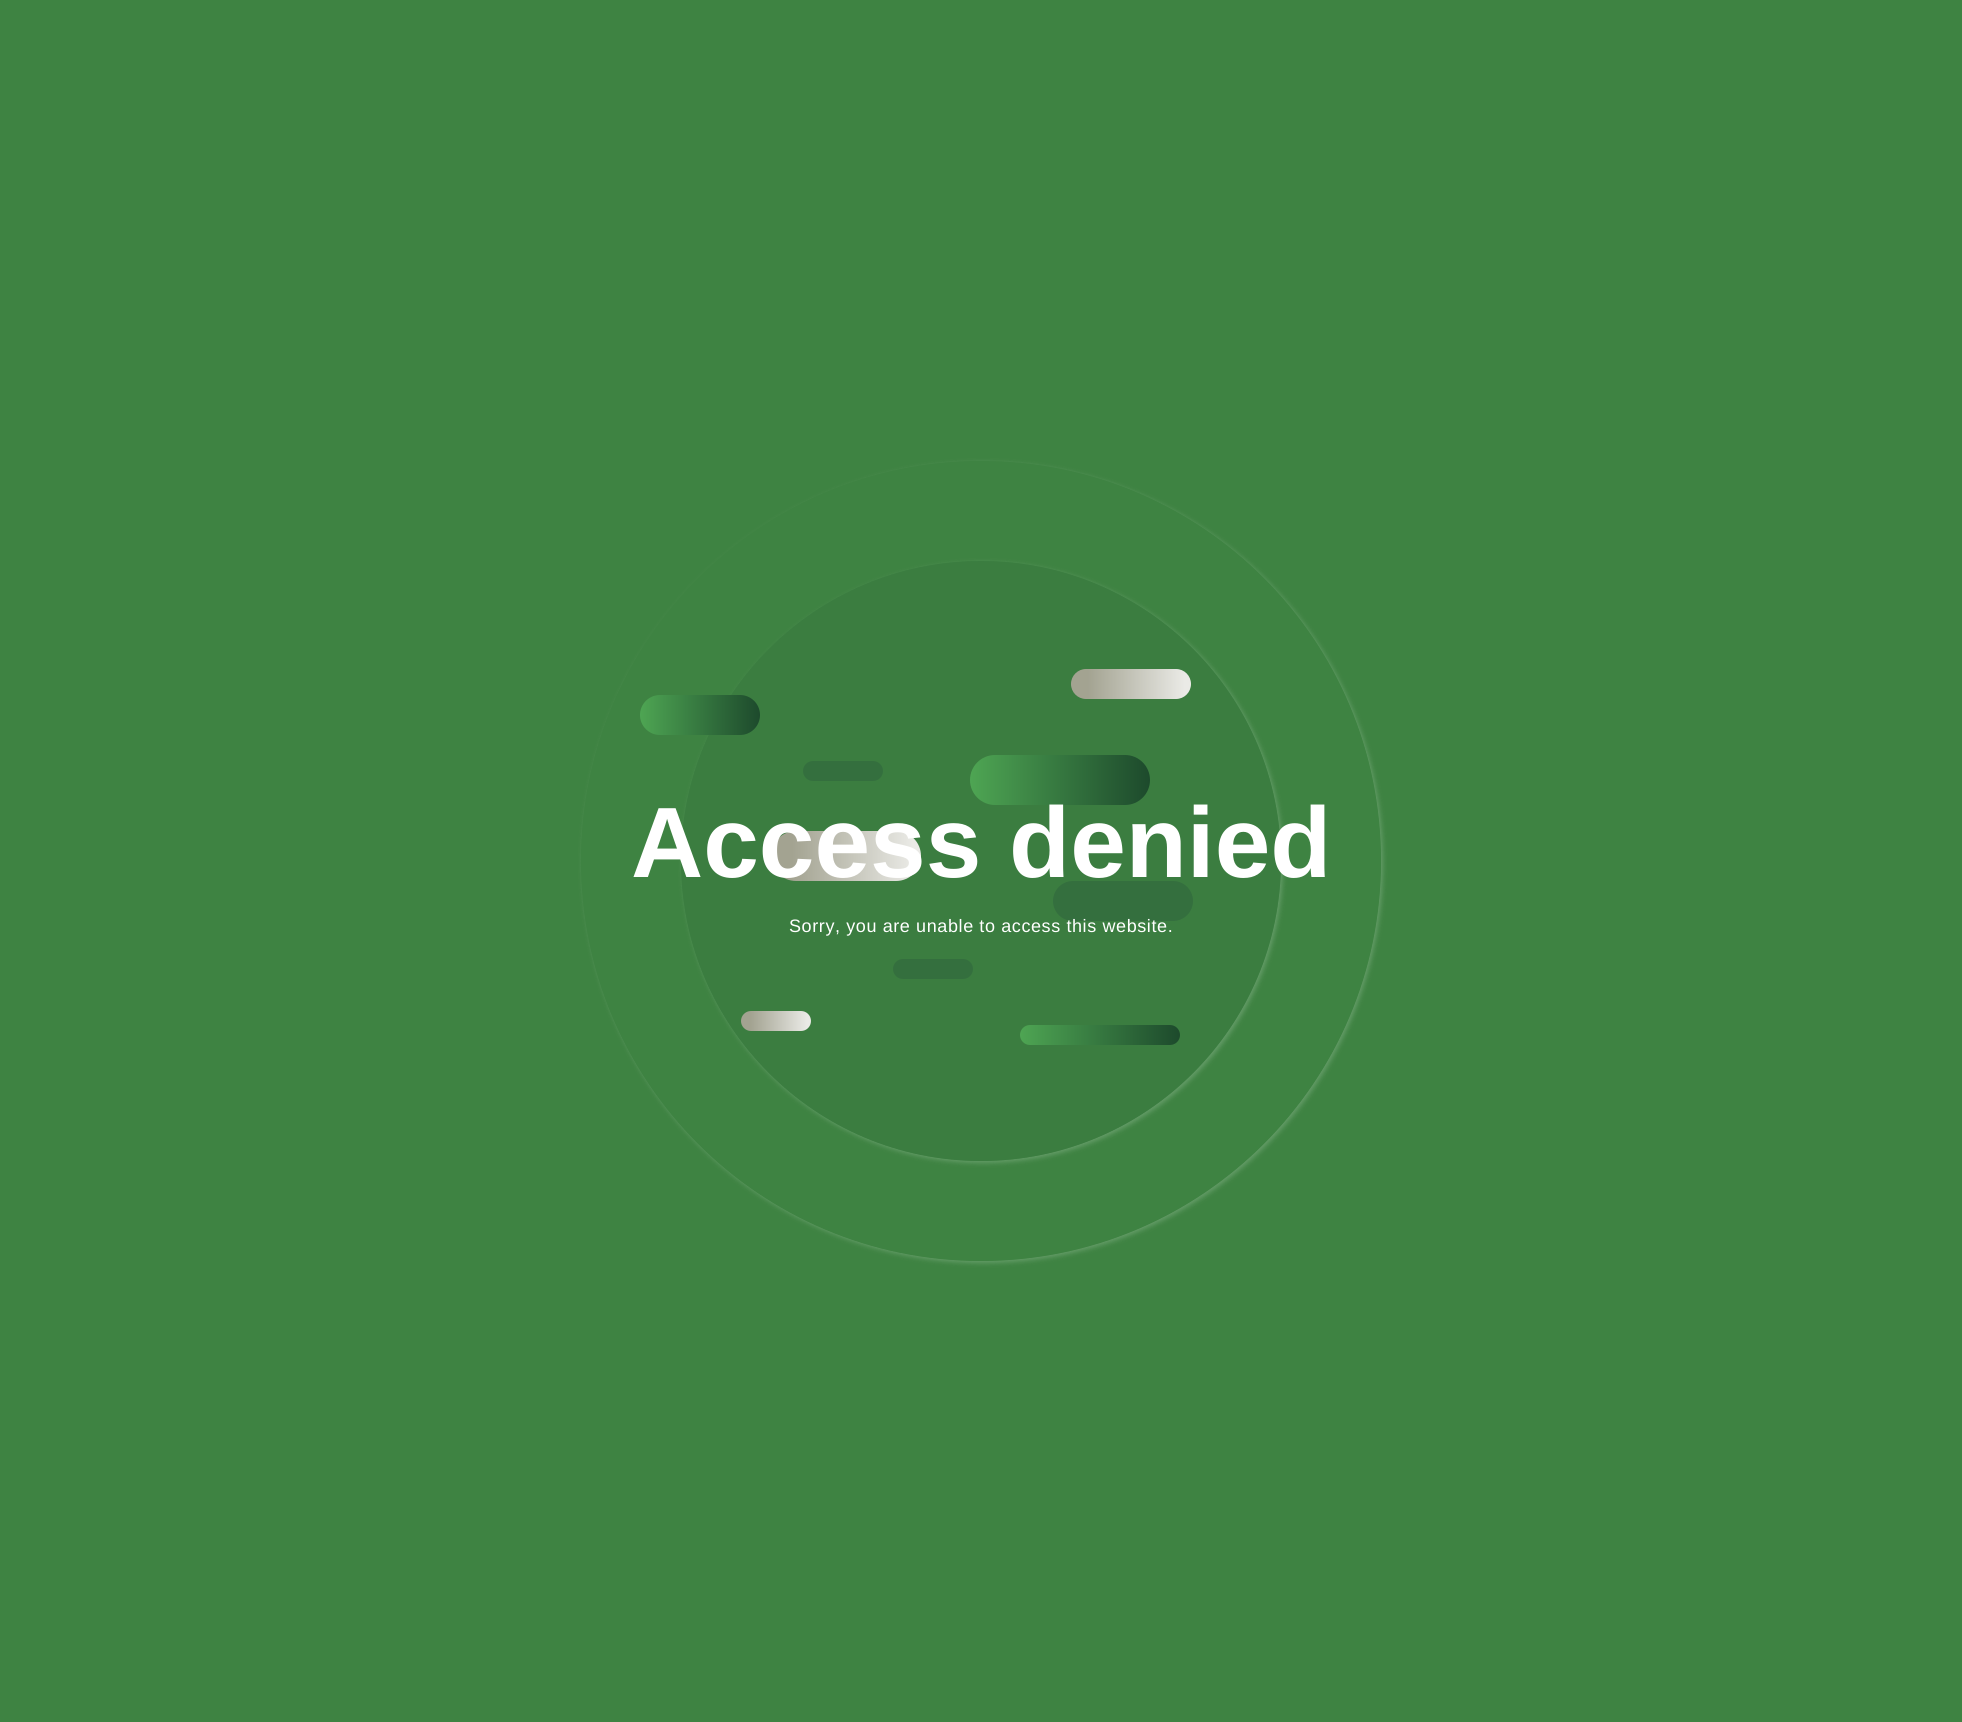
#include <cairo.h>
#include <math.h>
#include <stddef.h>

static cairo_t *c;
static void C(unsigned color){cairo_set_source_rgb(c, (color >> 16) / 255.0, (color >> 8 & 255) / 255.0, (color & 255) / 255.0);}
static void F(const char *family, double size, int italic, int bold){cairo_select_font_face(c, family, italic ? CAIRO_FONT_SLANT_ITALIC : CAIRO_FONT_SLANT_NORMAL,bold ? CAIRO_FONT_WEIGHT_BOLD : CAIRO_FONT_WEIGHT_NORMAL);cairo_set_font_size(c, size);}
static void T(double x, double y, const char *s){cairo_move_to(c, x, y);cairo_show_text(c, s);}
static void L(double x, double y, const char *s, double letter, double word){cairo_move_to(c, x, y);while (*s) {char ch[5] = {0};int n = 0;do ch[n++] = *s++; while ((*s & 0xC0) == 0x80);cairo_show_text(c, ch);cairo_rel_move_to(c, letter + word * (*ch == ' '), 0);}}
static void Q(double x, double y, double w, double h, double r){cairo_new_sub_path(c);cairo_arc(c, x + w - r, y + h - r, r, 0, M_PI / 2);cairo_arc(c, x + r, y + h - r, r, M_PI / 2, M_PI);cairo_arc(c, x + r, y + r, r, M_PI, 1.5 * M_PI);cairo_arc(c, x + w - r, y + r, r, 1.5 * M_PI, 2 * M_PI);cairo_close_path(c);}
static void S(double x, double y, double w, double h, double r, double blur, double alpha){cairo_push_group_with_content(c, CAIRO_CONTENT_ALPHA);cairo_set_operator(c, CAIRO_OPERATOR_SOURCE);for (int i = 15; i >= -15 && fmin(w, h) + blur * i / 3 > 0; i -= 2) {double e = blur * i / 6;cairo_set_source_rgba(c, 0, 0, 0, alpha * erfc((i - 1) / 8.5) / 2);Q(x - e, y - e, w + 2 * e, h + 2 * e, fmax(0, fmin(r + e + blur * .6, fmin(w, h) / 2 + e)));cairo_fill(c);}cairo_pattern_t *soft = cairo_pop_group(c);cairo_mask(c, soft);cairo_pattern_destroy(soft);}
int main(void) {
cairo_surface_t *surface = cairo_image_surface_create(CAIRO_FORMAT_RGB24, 1962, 1722);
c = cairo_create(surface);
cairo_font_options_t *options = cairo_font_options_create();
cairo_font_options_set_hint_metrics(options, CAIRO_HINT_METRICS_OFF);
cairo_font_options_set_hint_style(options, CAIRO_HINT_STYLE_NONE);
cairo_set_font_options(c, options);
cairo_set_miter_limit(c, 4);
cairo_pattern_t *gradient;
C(0x3e8342);
cairo_paint(c);
cairo_save(c);
cairo_set_fill_rule(c,CAIRO_FILL_RULE_EVEN_ODD);
cairo_new_path(c);
cairo_move_to(c,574,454);
cairo_line_to(c,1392,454);
cairo_line_to(c,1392,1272);
cairo_line_to(c,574,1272);
cairo_close_path(c);
cairo_move_to(c,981,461);
cairo_curve_to(c,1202,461,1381,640,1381,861);
cairo_curve_to(c,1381,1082,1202,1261,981,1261);
cairo_curve_to(c,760,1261,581,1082,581,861);
cairo_curve_to(c,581,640,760,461,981,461);
cairo_close_path(c);
cairo_clip(c);
C(0xffffff);
S(583,463,800,800,400,2.5,.2);
cairo_restore(c);
cairo_save(c);
cairo_set_fill_rule(c,CAIRO_FILL_RULE_EVEN_ODD);
cairo_new_path(c);
cairo_move_to(c,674,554);
cairo_line_to(c,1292,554);
cairo_line_to(c,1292,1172);
cairo_line_to(c,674,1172);
cairo_close_path(c);
cairo_move_to(c,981,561);
cairo_curve_to(c,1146.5,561,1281,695.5,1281,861);
cairo_curve_to(c,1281,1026.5,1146.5,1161,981,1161);
cairo_curve_to(c,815.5,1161,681,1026.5,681,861);
cairo_curve_to(c,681,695.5,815.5,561,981,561);
cairo_close_path(c);
cairo_clip(c);
C(0xffffff);
S(683,563,600,600,300,2.5,.2);
cairo_restore(c);
cairo_set_source_rgba(c,0.204,0.435,0.243,0.3);
cairo_arc(c,981,861,300,0,2 * M_PI);
cairo_fill(c);
gradient = cairo_pattern_create_linear(1071,684,1191,684);
cairo_pattern_add_color_stop_rgba(gradient,.14,0.639,0.639,0.569,1);
cairo_pattern_add_color_stop_rgba(gradient,.95,0.918,0.918,0.902,1);
cairo_set_source(c,gradient);
cairo_pattern_destroy(gradient);
Q(1071,669,120,30,15);
cairo_fill(c);
gradient = cairo_pattern_create_linear(771,856,921,856);
cairo_pattern_add_color_stop_rgba(gradient,.14,0.639,0.639,0.569,1);
cairo_pattern_add_color_stop_rgba(gradient,.95,0.918,0.918,0.902,1);
cairo_set_source(c,gradient);
cairo_pattern_destroy(gradient);
Q(771,831,150,50,25);
cairo_fill(c);
gradient = cairo_pattern_create_linear(741,1021,811,1021);
cairo_pattern_add_color_stop_rgba(gradient,.14,0.639,0.639,0.569,1);
cairo_pattern_add_color_stop_rgba(gradient,.95,0.918,0.918,0.902,1);
cairo_set_source(c,gradient);
cairo_pattern_destroy(gradient);
Q(741,1011,70,20,10);
cairo_fill(c);
gradient = cairo_pattern_create_linear(640,715,760,715);
cairo_pattern_add_color_stop_rgba(gradient,0,0.306,0.647,0.325,1);
cairo_pattern_add_color_stop_rgba(gradient,1,0.114,0.29,0.173,1);
cairo_set_source(c,gradient);
cairo_pattern_destroy(gradient);
Q(640,695,120,40,20);
cairo_fill(c);
gradient = cairo_pattern_create_linear(970,780,1150,780);
cairo_pattern_add_color_stop_rgba(gradient,0,0.306,0.647,0.325,1);
cairo_pattern_add_color_stop_rgba(gradient,1,0.114,0.29,0.173,1);
cairo_set_source(c,gradient);
cairo_pattern_destroy(gradient);
Q(970,755,180,50,25);
cairo_fill(c);
gradient = cairo_pattern_create_linear(1020,1035,1180,1035);
cairo_pattern_add_color_stop_rgba(gradient,0,0.306,0.647,0.325,1);
cairo_pattern_add_color_stop_rgba(gradient,1,0.114,0.29,0.173,1);
cairo_set_source(c,gradient);
cairo_pattern_destroy(gradient);
Q(1020,1025,160,20,10);
cairo_fill(c);
C(0x346f3e);
Q(803,761,80,20,10);
cairo_fill(c);
Q(1053,881,140,40,20);
cairo_fill(c);
Q(893,959,80,20,10);
cairo_fill(c);
F("Liberation Sans",100,0,1);
C(0xffffff);
T(631,877,"Access denied");
F("Liberation Sans",18,0,0);
L(789,932,"Sorry, you are unable to access this website.",.6,0);
cairo_surface_write_to_png(surface, "o.png");
cairo_font_options_destroy(options);
cairo_destroy(c);
cairo_surface_destroy(surface);
return 0;
}
